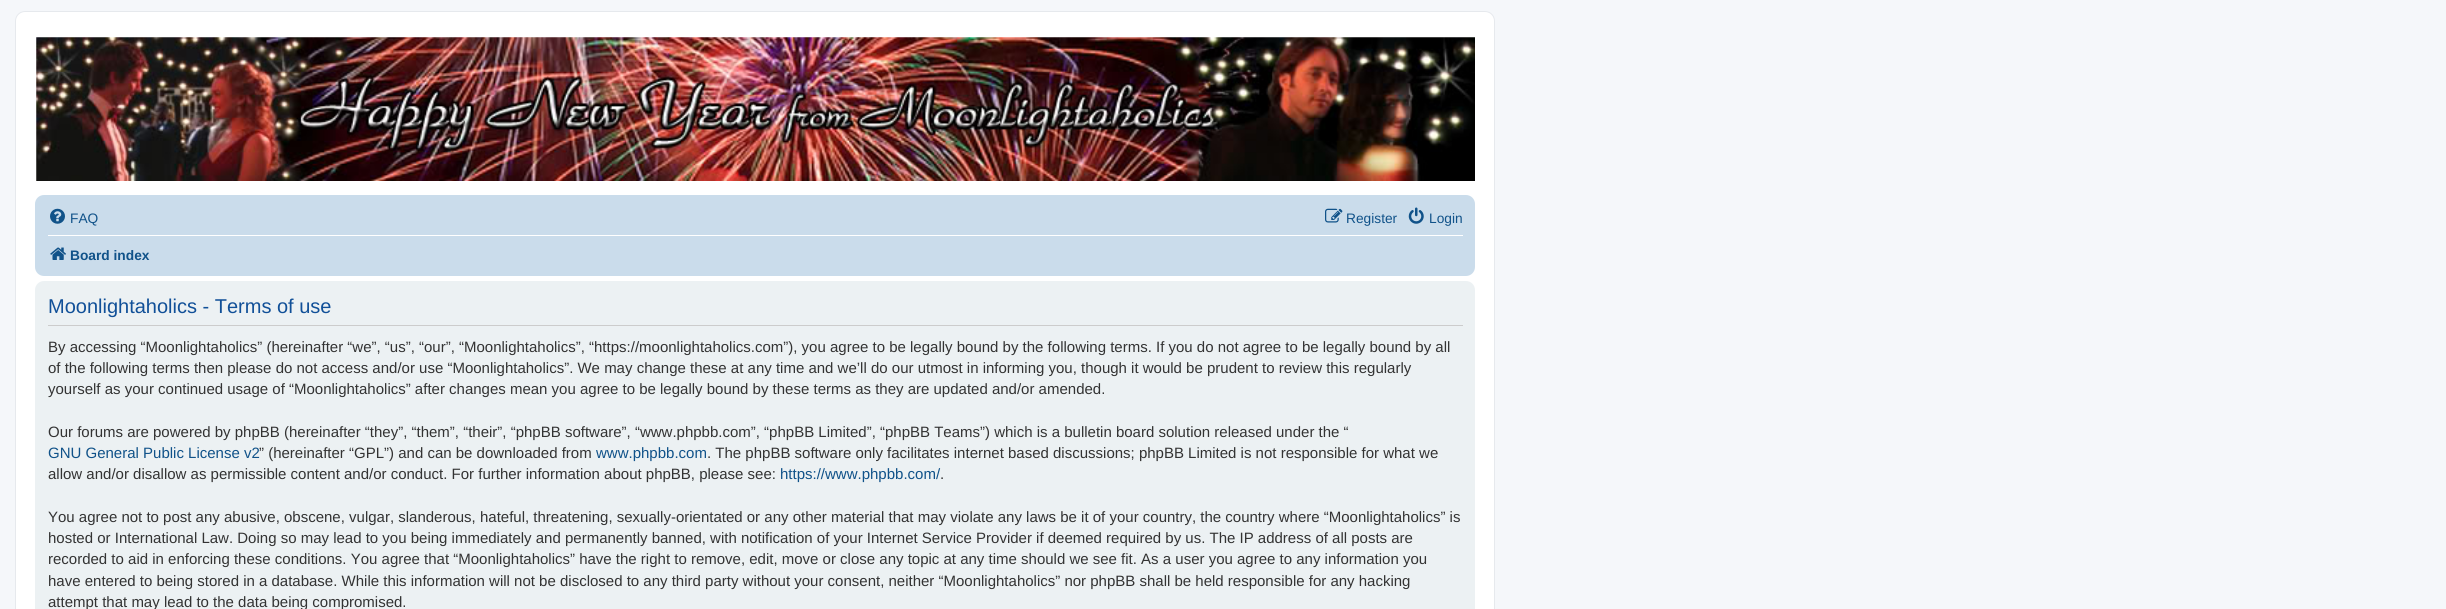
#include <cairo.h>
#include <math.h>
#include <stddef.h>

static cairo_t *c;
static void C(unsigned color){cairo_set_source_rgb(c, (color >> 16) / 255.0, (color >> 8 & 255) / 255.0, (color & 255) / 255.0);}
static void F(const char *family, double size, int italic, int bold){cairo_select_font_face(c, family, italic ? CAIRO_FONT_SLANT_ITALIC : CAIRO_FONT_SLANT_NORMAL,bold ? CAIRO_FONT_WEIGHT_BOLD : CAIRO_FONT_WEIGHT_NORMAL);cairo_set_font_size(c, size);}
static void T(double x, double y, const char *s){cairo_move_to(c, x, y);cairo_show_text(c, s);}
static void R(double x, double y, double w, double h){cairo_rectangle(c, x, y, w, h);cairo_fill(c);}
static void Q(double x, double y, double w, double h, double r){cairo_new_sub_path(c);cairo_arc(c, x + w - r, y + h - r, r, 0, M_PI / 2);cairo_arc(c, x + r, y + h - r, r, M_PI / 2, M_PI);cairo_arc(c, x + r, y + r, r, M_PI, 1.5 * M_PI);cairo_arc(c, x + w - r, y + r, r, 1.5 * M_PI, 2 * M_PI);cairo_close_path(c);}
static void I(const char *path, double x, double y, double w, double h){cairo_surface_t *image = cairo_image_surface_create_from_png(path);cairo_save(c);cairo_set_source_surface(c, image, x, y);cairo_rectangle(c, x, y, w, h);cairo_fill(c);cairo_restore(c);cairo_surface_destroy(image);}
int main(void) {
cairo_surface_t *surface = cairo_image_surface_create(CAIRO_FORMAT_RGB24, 2446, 609);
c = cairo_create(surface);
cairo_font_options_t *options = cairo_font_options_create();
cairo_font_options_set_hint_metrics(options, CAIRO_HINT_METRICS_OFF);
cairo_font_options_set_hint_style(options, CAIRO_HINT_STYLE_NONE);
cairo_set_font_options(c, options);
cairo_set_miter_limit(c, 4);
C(0xf5f7fa);
cairo_paint(c);
C(0xffffff);
Q(15.5,11.5,1479,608,9.5);
cairo_fill_preserve(c);
C(0xe6e9ed);
cairo_set_line_width(c,1);
cairo_stroke(c);
I("1.png",36,37,1439,144);
C(0xcadceb);
Q(35,195,1440,81,9);
cairo_fill(c);
I("2.png",50,208,15,16);
F("Liberation Sans",13.75,0,0);
C(0x105289);
T(70,223,"FAQ");
I("3.png",1325,208,18,15);
T(1346,223,"Register");
I("4.png",1408,207,16,17);
T(1429,223,"Login");
C(0xffffff);
R(48,235,1415,1);
I("5.png",50,247,16,13);
F("Liberation Sans",13.75,0,1);
C(0x105289);
T(70,260,"Board index");
C(0xecf1f3);
Q(35,281,1440,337,9);
cairo_fill(c);
C(0xcccccc);
R(48,325,1415,1);
F("Liberation Sans",20,0,0);
C(0x115098);
T(48,313,"Moonlightaholics - Terms of use");
F("Liberation Sans",15,0,0);
C(0x333333);
T(48,352,"By accessing “Moonlightaholics” (hereinafter “we”, “us”, “our”, “Moonlightaholics”, “https://moonlightaholics.com”), you agree to be legally bound by the following terms. If you do not agree to be legally bound by all");
T(48,373,"of the following terms then please do not access and/or use “Moonlightaholics”. We may change these at any time and we’ll do our utmost in informing you, though it would be prudent to review this regularly");
T(48,394,"yourself as your continued usage of “Moonlightaholics” after changes mean you agree to be legally bound by these terms as they are updated and/or amended.");
T(48,437,"Our forums are powered by phpBB (hereinafter “they”, “them”, “their”, “phpBB software”, “www.phpbb.com”, “phpBB Limited”, “phpBB Teams”) which is a bulletin board solution released under the “");
C(0x105289);
T(48,458,"GNU General Public License v2");
C(0x333333);
T(259,458,"” (hereinafter “GPL”) and can be downloaded from");
C(0x105289);
T(596,458,"www.phpbb.com");
C(0x333333);
T(707,458,". The phpBB software only facilitates internet based discussions; phpBB Limited is not responsible for what we");
T(48,479,"allow and/or disallow as permissible content and/or conduct. For further information about phpBB, please see:");
C(0x105289);
T(780,479,"https://www.phpbb.com/");
C(0x333333);
T(940,479,".");
T(48,522,"You agree not to post any abusive, obscene, vulgar, slanderous, hateful, threatening, sexually-orientated or any other material that may violate any laws be it of your country, the country where “Moonlightaholics” is");
T(48,543,"hosted or International Law. Doing so may lead to you being immediately and permanently banned, with notification of your Internet Service Provider if deemed required by us. The IP address of all posts are");
T(48,564,"recorded to aid in enforcing these conditions. You agree that “Moonlightaholics” have the right to remove, edit, move or close any topic at any time should we see fit. As a user you agree to any information you");
T(48,586,"have entered to being stored in a database. While this information will not be disclosed to any third party without your consent, neither “Moonlightaholics” nor phpBB shall be held responsible for any hacking");
T(48,607,"attempt that may lead to the data being compromised.");
cairo_surface_write_to_png(surface, "o.png");
cairo_font_options_destroy(options);
cairo_destroy(c);
cairo_surface_destroy(surface);
return 0;
}
